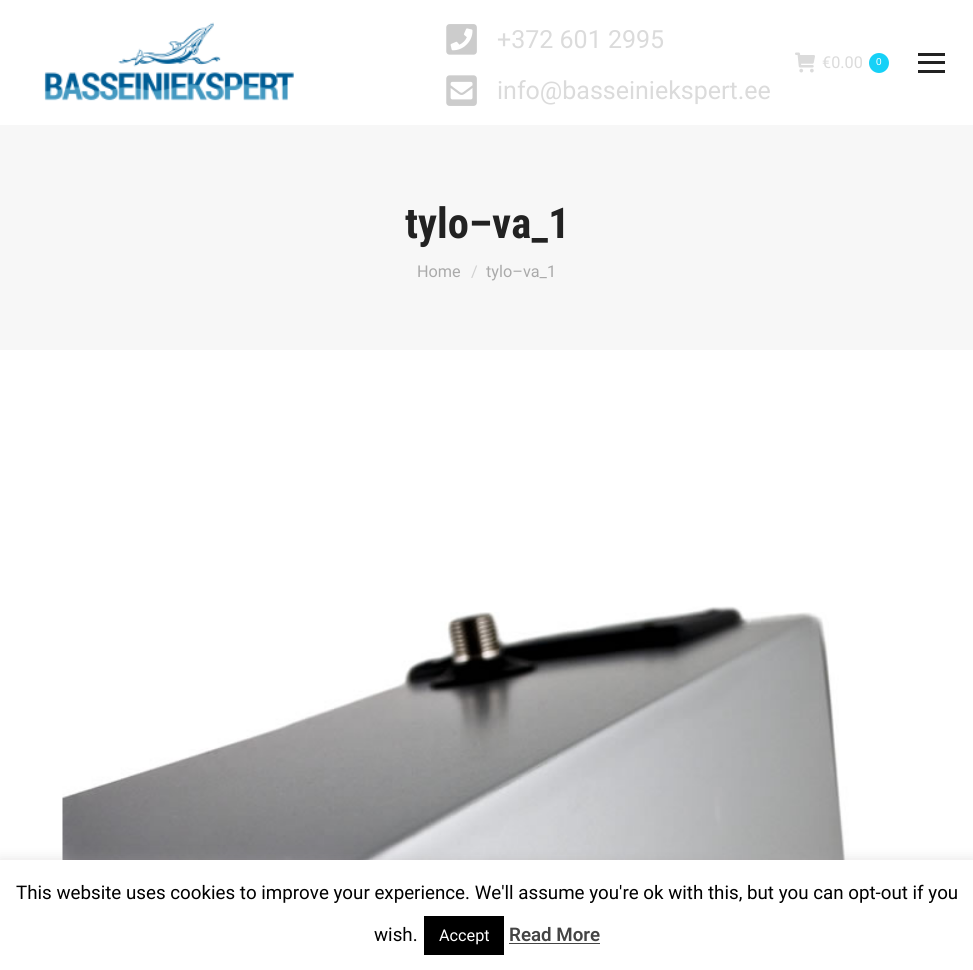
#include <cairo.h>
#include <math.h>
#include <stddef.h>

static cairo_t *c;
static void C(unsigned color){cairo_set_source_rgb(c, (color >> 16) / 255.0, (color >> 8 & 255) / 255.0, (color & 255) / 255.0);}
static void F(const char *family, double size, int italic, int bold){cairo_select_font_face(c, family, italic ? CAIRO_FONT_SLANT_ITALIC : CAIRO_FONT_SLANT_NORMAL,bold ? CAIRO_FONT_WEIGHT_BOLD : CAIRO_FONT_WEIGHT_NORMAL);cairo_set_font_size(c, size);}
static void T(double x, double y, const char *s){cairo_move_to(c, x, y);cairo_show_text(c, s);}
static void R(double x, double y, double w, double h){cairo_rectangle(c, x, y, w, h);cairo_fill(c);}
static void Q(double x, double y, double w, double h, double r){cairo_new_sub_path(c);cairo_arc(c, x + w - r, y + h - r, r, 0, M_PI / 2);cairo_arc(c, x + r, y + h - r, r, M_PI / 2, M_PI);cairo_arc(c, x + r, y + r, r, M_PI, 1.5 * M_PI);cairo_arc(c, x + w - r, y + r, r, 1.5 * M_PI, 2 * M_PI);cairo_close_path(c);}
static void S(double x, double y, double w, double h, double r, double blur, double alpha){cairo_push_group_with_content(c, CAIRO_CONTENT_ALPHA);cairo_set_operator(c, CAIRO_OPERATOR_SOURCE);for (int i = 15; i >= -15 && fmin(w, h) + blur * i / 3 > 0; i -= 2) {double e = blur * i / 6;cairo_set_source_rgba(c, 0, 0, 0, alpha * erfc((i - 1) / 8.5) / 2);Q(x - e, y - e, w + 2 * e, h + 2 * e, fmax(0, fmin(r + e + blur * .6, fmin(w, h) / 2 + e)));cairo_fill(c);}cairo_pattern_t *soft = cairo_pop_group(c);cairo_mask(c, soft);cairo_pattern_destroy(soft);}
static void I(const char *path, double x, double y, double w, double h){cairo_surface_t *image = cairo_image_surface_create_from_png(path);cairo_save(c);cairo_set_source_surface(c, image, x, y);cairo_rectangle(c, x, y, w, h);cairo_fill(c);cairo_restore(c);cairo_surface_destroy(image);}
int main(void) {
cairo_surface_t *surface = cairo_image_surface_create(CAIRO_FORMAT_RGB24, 973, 970);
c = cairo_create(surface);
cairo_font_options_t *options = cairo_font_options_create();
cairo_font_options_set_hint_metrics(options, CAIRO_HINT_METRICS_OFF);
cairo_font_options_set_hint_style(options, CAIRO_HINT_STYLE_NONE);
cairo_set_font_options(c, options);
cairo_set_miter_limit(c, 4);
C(0xffffff);
cairo_paint(c);
I("1.png",44,22,250,79);
I("2.png",446,24,31,31);
F("Roboto",25,0,0);
C(0xdbdbdb);
T(497,48,"+372 601 2995");
I("3.png",446,75,31,31);
T(497,99,"info@basseiniekspert.ee");
I("4.png",795,52,20,21);
F("Roboto",16.25,0,0);
T(822,68,"€0.00");
C(0x16d1f7);
cairo_new_path(c);
cairo_arc(c,879,63,10,0,2 * M_PI);
cairo_fill(c);
F("Liberation Sans",10,0,0);
C(0xffffff);
T(876,65,"0");
C(0x222222);
R(918,53,27,3);
R(918,61,27,3);
R(918,70,27,3);
C(0xf7f7f7);
R(0,125,973,225);
F("Roboto Condensed",42.5,0,1);
C(0x222222);
T(405,238,"tylo–va_1");
F("Roboto",16.25,0,0);
C(0xaaaaaa);
T(417,277,"Home");
C(0xd1d1d1);
T(471,277,"/");
C(0xaaaaaa);
T(486,277,"tylo–va_1");
I("5.png",62,606,793,254);
C(0xacabab);
S(0,859,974,110,0,6,.3);
C(0xffffff);
R(0,860,973,110);
F("Roboto",18.75,0,0);
C(0x000000);
T(16,899,"This website uses cookies to improve your experience. We'll assume you're ok with this, but you can opt-out if you");
T(374,941,"wish.");
R(424,916,80,39);
F("Roboto",16.25,0,0);
C(0xffffff);
T(439,941,"Accept");
F("Roboto SemiBold",18.75,0,0);
C(0x444444);
T(509,941,"Read More");
R(509,943,91,1);
cairo_surface_write_to_png(surface, "o.png");
cairo_font_options_destroy(options);
cairo_destroy(c);
cairo_surface_destroy(surface);
return 0;
}
